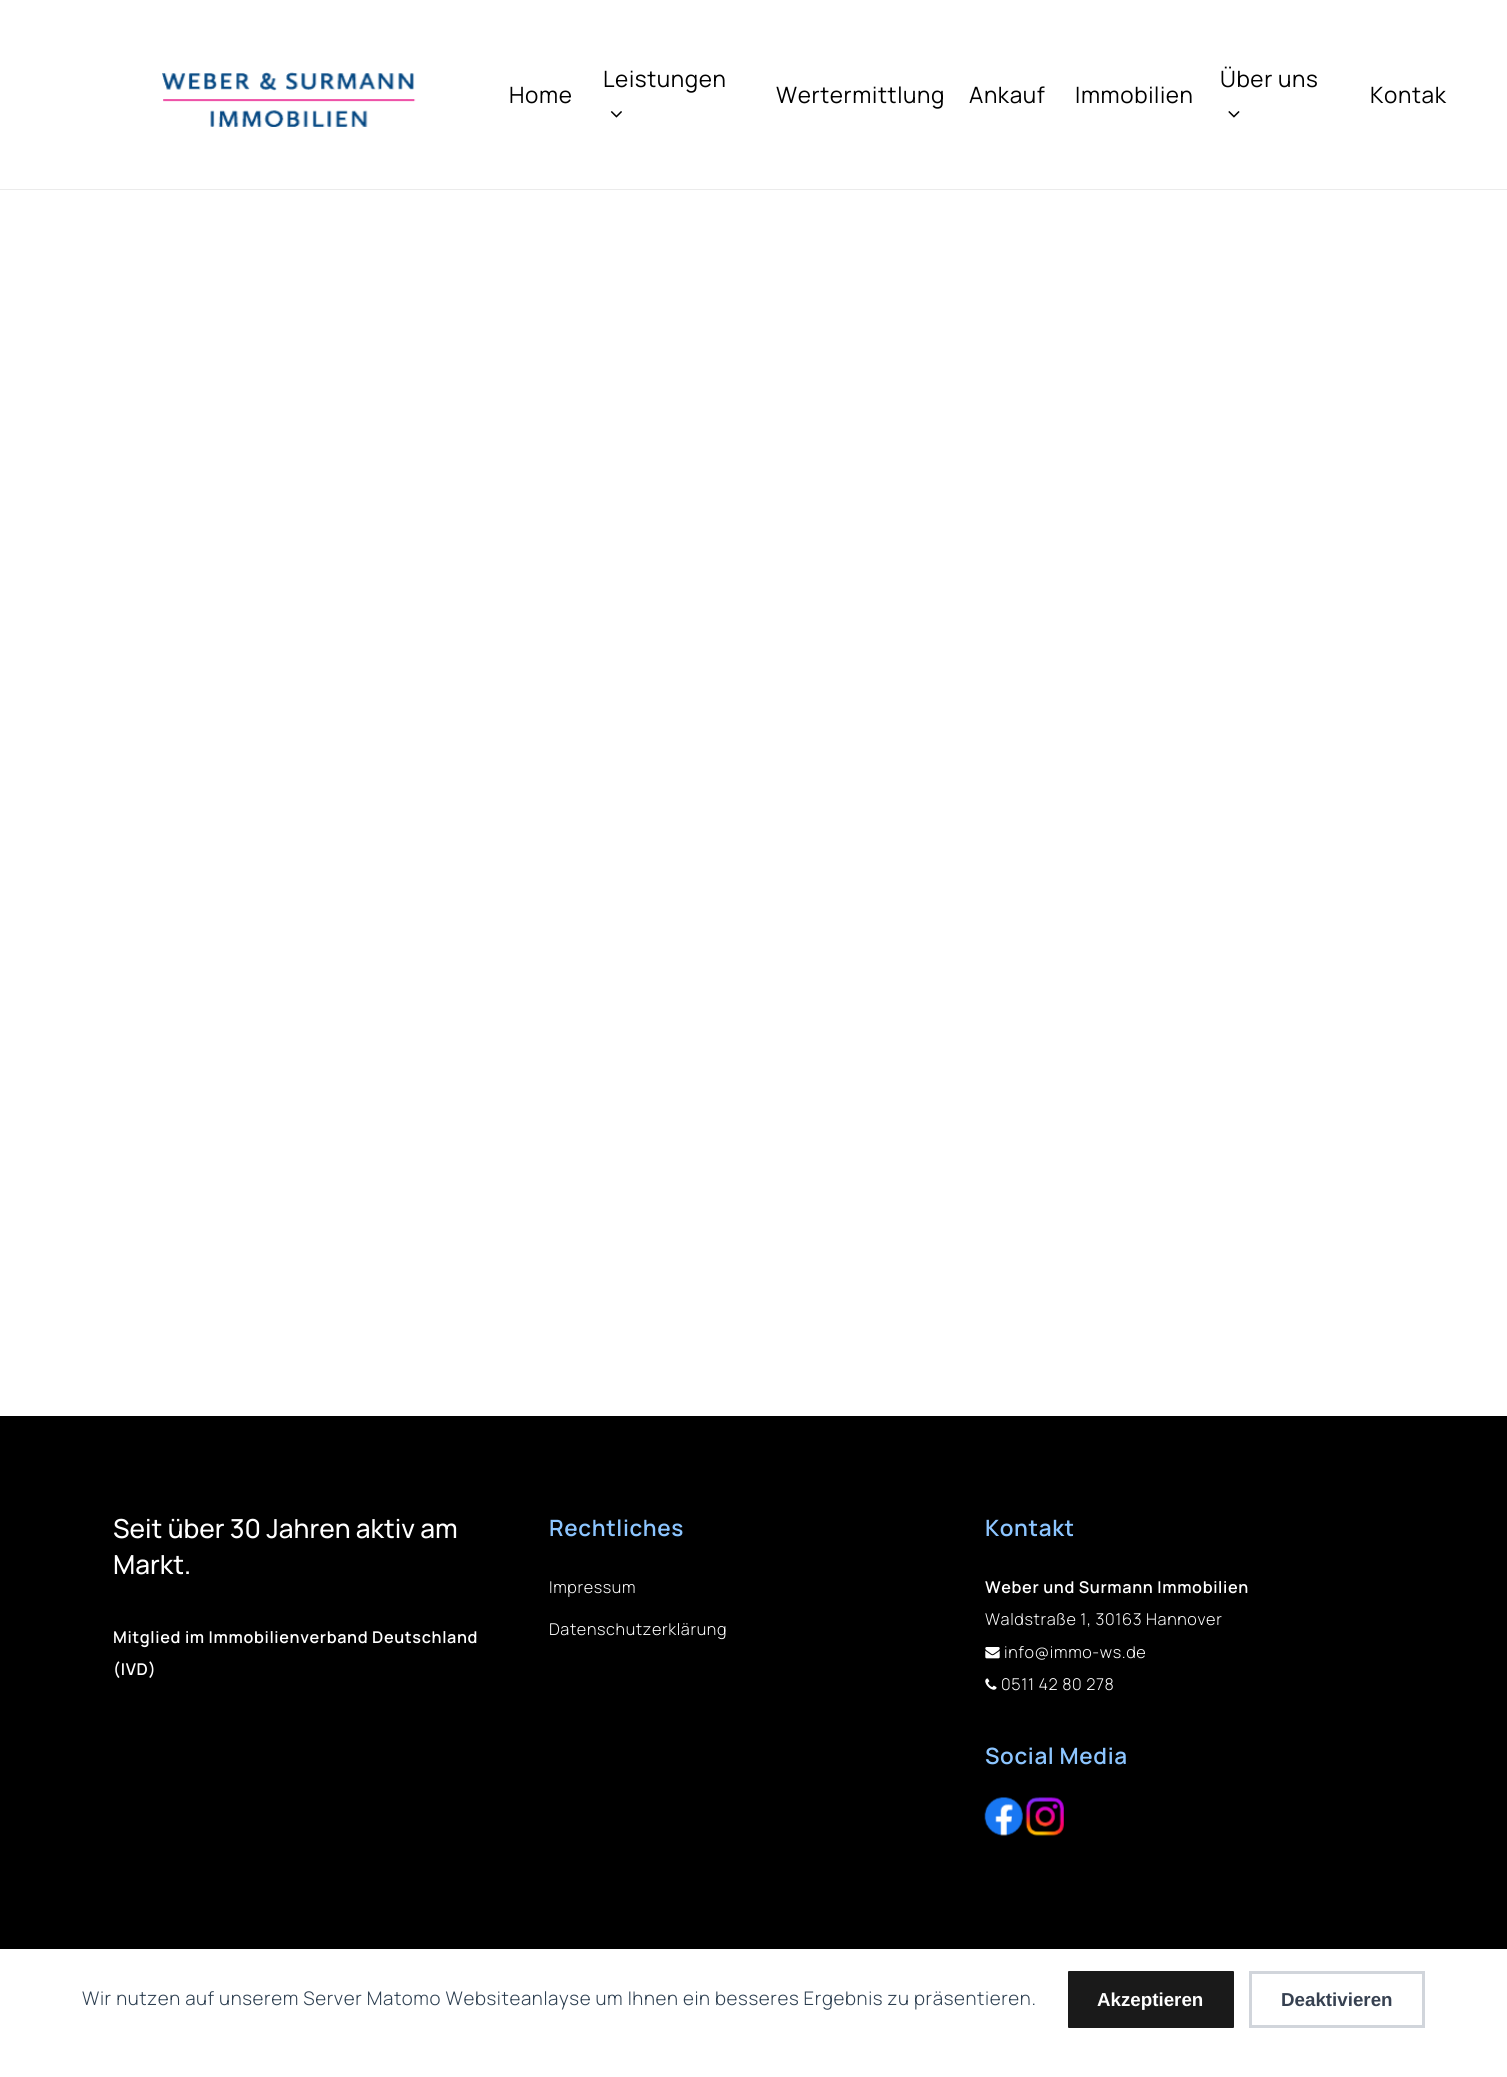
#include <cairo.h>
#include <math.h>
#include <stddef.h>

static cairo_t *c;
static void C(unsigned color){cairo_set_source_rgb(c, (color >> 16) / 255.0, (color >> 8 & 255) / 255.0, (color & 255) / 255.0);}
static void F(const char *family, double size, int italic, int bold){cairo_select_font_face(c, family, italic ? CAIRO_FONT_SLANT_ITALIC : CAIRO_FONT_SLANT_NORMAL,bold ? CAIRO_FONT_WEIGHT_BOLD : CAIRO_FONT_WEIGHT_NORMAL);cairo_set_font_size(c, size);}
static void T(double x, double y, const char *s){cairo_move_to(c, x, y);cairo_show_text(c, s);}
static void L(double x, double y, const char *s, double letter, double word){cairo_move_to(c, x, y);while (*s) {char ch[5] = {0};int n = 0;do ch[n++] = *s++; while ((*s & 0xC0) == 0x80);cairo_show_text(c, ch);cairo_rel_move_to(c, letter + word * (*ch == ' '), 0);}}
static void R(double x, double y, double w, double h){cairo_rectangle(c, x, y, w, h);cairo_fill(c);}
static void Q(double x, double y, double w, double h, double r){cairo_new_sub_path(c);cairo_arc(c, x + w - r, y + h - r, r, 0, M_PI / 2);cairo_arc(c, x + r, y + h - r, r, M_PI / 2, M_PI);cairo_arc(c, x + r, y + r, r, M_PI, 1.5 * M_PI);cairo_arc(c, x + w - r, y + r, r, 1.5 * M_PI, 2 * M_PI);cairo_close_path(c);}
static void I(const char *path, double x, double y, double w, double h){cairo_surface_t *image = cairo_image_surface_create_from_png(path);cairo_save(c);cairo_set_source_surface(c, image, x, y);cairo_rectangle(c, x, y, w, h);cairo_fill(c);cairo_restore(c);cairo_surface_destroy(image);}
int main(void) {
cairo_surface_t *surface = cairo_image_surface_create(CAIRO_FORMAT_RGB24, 1507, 2077);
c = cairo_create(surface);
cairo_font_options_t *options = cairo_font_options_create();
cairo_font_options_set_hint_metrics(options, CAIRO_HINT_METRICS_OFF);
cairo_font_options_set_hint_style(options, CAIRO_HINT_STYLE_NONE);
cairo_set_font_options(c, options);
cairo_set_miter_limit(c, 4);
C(0xffffff);
cairo_paint(c);
C(0xebebeb);
cairo_new_path(c);
cairo_move_to(c,0,189);
cairo_line_to(c,0,190);
cairo_line_to(c,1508,190);
cairo_line_to(c,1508,1);
cairo_line_to(c,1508,189);
cairo_close_path(c);
cairo_fill(c);
I("1.png",162,72,254,55);
F("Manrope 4 ExtraLight",22.5,0,0);
C(0x000000);
L(603,87,"Leistungen",.62,0);
I("2.png",610,111,12,7);
L(1220,87,"Über uns",.62,0);
I("3.png",1228,111,12,7);
L(509,103,"Home",.62,0);
L(776,103,"Wertermittlung",.62,0);
L(969,103,"Ankauf",.62,0);
L(1075,103,"Immobilien",.62,0);
L(1370,103,"Kontak",.62,0);
R(0,1416,1507,533);
F("Manrope ExtraLight",26.25,0,0);
C(0xffffff);
T(113,1538,"Seit über 30 Jahren aktiv am");
T(113,1574,"Markt.");
F("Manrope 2 ExtraLight",16.25,0,0);
L(113,1643,"Mitglied im Immobilienverband Deutschland",.62,0);
L(113,1675,"(IVD)",.62,0);
F("Manrope 2 ExtraLight",22.5,0,0);
C(0x8cc5ff);
L(549,1536,"Rechtliches",.62,0);
F("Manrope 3 ExtraLight",16.25,0,0);
C(0xffffff);
L(549,1593,"Impressum",.62,0);
L(549,1635,"Datenschutzerklärung",.62,0);
F("Manrope 2 ExtraLight",22.5,0,0);
C(0x8cc5ff);
L(985,1536,"Kontakt",.62,0);
F("Manrope 2 ExtraLight",16.25,0,0);
C(0xffffff);
L(985,1593,"Weber und Surmann Immobilien",.62,0);
F("Manrope 3 ExtraLight",16.25,0,0);
L(985,1625,"Waldstraße 1, 30163 Hannover",.62,0);
I("4.png",985,1647,15,12);
L(1004,1658,"info@immo-ws.de",.62,0);
I("5.png",985,1678,12,12);
L(1001,1690,"0511 42 80 278",.62,0);
F("Manrope 2 ExtraLight",22.5,0,0);
C(0x8cc5ff);
L(985,1764,"Social Media",.62,0);
I("6.png",984,1797,39,39);
I("7.png",1025,1797,39,39);
F("Manrope 3 ExtraLight",18.75,0,0);
C(0x2c3e50);
L(82,2005,"Wir nutzen auf unserem Server Matomo Websiteanlayse um Ihnen ein besseres Ergebnis zu präsentieren.",.62,0);
C(0x1a1a1a);
Q(1068,1971,166,57,1);
cairo_fill(c);
F("Liberation Sans",18.75,0,1);
C(0xffffff);
T(1097,2006,"Akzeptieren");
cairo_rectangle(c,1250.5,1972.5,173,54);
C(0xd1d5db);
cairo_set_line_width(c,3);
cairo_stroke(c);
C(0x374151);
T(1281,2006,"Deaktivieren");
cairo_surface_write_to_png(surface, "o.png");
cairo_font_options_destroy(options);
cairo_destroy(c);
cairo_surface_destroy(surface);
return 0;
}
